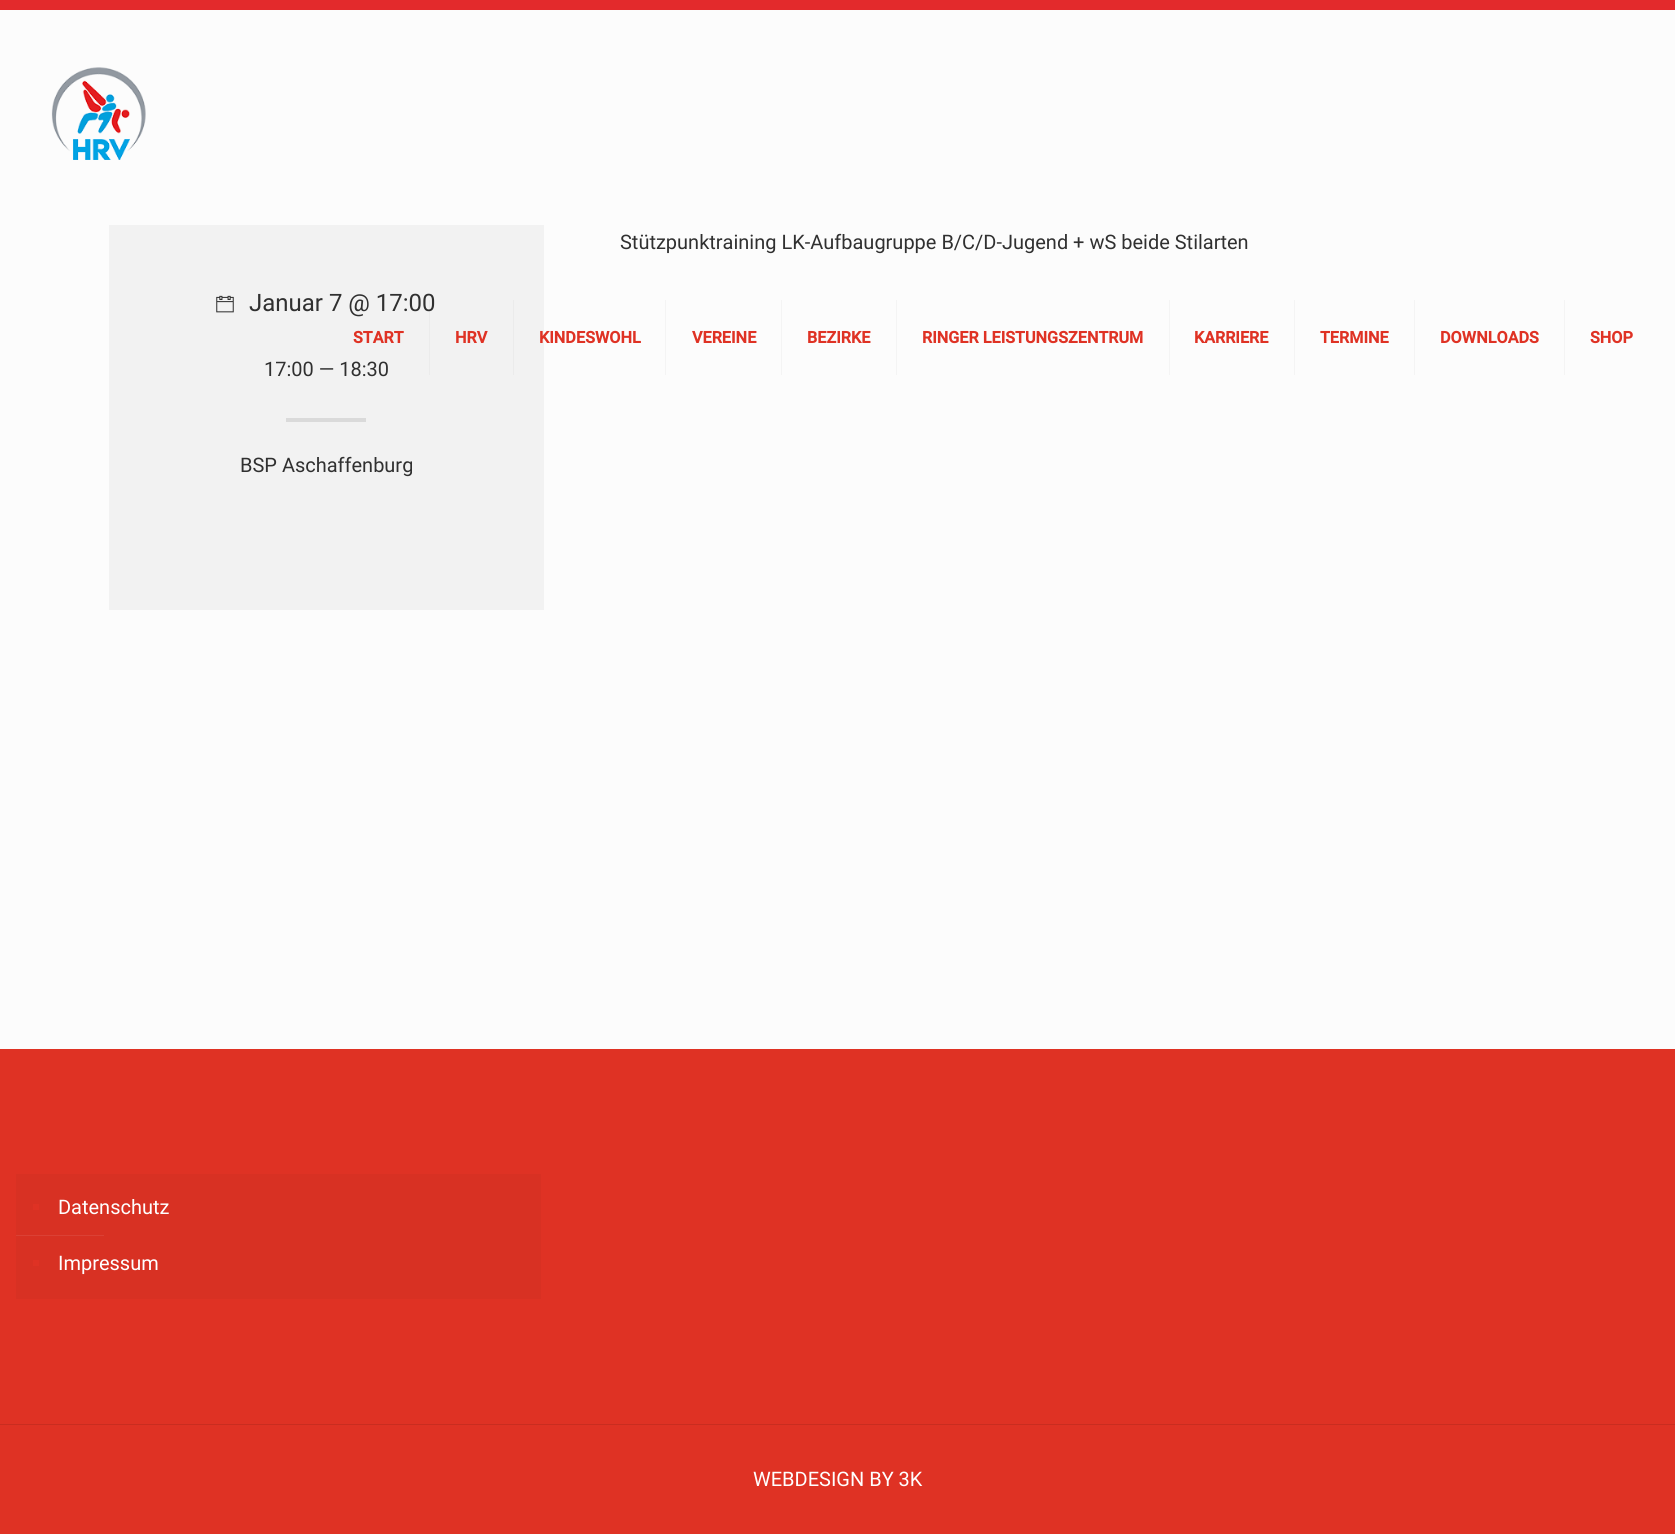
#include <cairo.h>
#include <math.h>
#include <stddef.h>

static cairo_t *c;
static void C(unsigned color){cairo_set_source_rgb(c, (color >> 16) / 255.0, (color >> 8 & 255) / 255.0, (color & 255) / 255.0);}
static void F(const char *family, double size, int italic, int bold){cairo_select_font_face(c, family, italic ? CAIRO_FONT_SLANT_ITALIC : CAIRO_FONT_SLANT_NORMAL,bold ? CAIRO_FONT_WEIGHT_BOLD : CAIRO_FONT_WEIGHT_NORMAL);cairo_set_font_size(c, size);}
static void T(double x, double y, const char *s){cairo_move_to(c, x, y);cairo_show_text(c, s);}
static void R(double x, double y, double w, double h){cairo_rectangle(c, x, y, w, h);cairo_fill(c);}
static void I(const char *path, double x, double y, double w, double h){cairo_surface_t *image = cairo_image_surface_create_from_png(path);cairo_save(c);cairo_set_source_surface(c, image, x, y);cairo_rectangle(c, x, y, w, h);cairo_fill(c);cairo_restore(c);cairo_surface_destroy(image);}
int main(void) {
cairo_surface_t *surface = cairo_image_surface_create(CAIRO_FORMAT_RGB24, 1675, 1534);
c = cairo_create(surface);
cairo_font_options_t *options = cairo_font_options_create();
cairo_font_options_set_hint_metrics(options, CAIRO_HINT_METRICS_OFF);
cairo_font_options_set_hint_style(options, CAIRO_HINT_STYLE_NONE);
cairo_set_font_options(c, options);
cairo_set_miter_limit(c, 4);
C(0xfcfcfc);
cairo_paint(c);
F("Roboto",20,0,0);
C(0x303030);
T(620,249,"Stützpunktraining LK-Aufbaugruppe B/C/D-Jugend + wS beide Stilarten");
I("1.png",216,295,18,18);
cairo_set_source_rgba(c,0.188,0.188,0.188,0.05);
R(109,225,435,385);
F("Roboto",24,0,0);
C(0x303030);
T(249,311,"Januar 7 @ 17:00");
F("Roboto",20,0,0);
T(264,376,"17:00 — 18:30");
C(0xdadada);
R(286,418,80,4);
C(0x303030);
T(240,472,"BSP Aschaffenburg");
C(0xe32a2c);
R(0,0,1675,10);
I("2.png",51,67,95,93);
cairo_set_source_rgba(c,0,0,0,0.03);
R(429,300,1,75);
F("Roboto",16.25,0,1);
C(0xdf3224);
T(353,343,"START");
C(0xebebeb);
R(513,300,1,75);
C(0xdf3224);
T(455,343,"HRV");
C(0xf4f4f4);
R(665,300,1,75);
C(0xdf3224);
T(539,343,"KINDESWOHL");
C(0xf4f4f4);
R(781,300,1,75);
C(0xdf3224);
T(692,343,"VEREINE");
C(0xf4f4f4);
R(896,300,1,75);
C(0xdf3224);
T(807,343,"BEZIRKE");
C(0xf4f4f4);
R(1169,300,1,75);
C(0xdf3224);
T(922,343,"RINGER LEISTUNGSZENTRUM");
C(0xf4f4f4);
R(1294,300,1,75);
C(0xdf3224);
T(1194,343,"KARRIERE");
C(0xf4f4f4);
R(1414,300,1,75);
C(0xdf3224);
T(1320,343,"TERMINE");
C(0xf4f4f4);
R(1564,300,1,75);
C(0xdf3224);
T(1440,343,"DOWNLOADS");
T(1590,343,"SHOP");
R(0,1049,1675,485);
C(0xd83123);
R(16,1174,525,125);
C(0xdf3224);
R(33,1204,6,6);
F("Roboto",20,0,0);
C(0xffffff);
T(58,1214,"Datenschutz");
C(0xdb4135);
R(16,1235,88,1);
C(0xdf3224);
R(33,1260,6,6);
C(0xffffff);
T(58,1270,"Impressum");
C(0xc92d20);
R(0,1424,1675,1);
C(0xffffff);
T(753,1486,"WEBDESIGN BY 3K");
cairo_surface_write_to_png(surface, "o.png");
cairo_font_options_destroy(options);
cairo_destroy(c);
cairo_surface_destroy(surface);
return 0;
}
